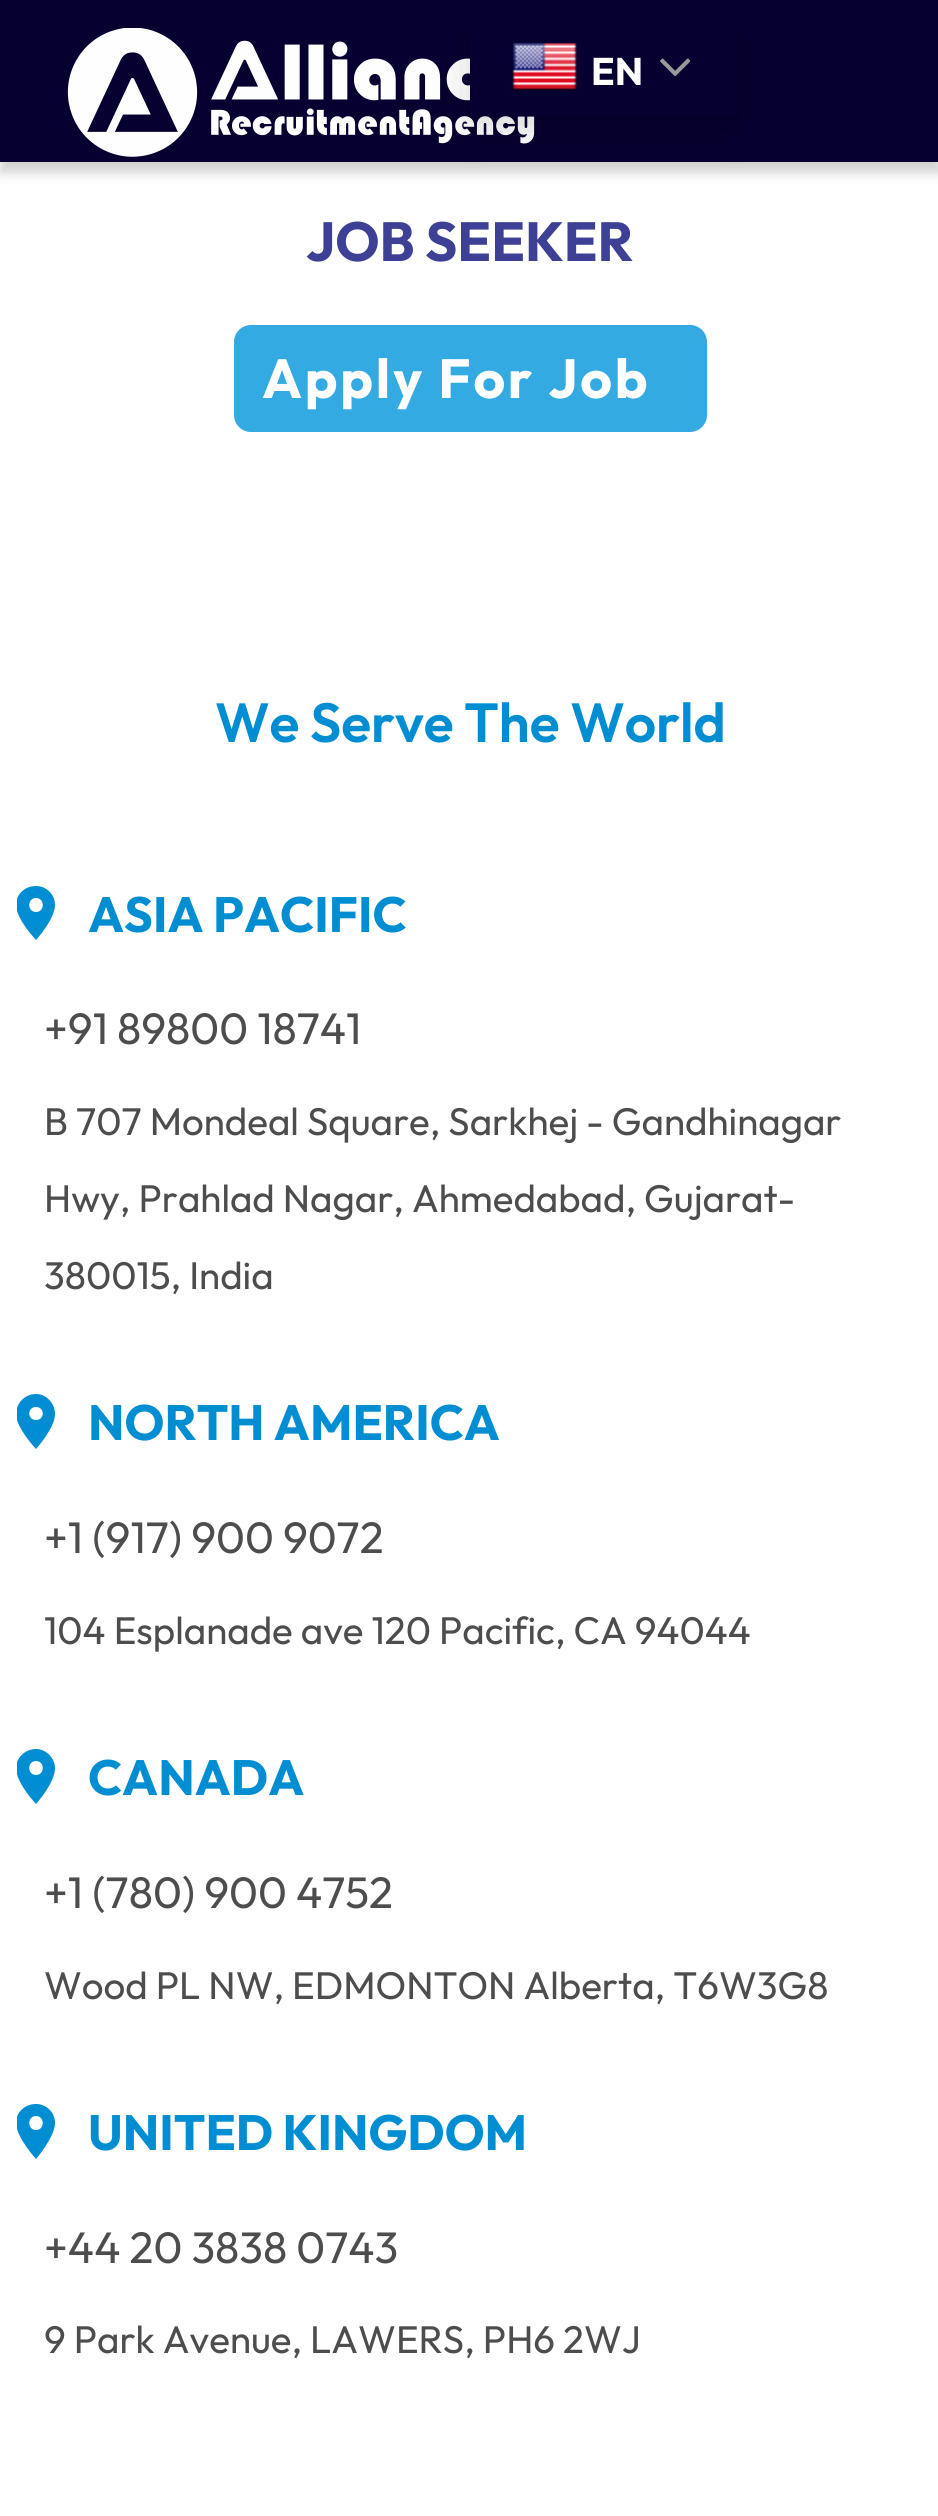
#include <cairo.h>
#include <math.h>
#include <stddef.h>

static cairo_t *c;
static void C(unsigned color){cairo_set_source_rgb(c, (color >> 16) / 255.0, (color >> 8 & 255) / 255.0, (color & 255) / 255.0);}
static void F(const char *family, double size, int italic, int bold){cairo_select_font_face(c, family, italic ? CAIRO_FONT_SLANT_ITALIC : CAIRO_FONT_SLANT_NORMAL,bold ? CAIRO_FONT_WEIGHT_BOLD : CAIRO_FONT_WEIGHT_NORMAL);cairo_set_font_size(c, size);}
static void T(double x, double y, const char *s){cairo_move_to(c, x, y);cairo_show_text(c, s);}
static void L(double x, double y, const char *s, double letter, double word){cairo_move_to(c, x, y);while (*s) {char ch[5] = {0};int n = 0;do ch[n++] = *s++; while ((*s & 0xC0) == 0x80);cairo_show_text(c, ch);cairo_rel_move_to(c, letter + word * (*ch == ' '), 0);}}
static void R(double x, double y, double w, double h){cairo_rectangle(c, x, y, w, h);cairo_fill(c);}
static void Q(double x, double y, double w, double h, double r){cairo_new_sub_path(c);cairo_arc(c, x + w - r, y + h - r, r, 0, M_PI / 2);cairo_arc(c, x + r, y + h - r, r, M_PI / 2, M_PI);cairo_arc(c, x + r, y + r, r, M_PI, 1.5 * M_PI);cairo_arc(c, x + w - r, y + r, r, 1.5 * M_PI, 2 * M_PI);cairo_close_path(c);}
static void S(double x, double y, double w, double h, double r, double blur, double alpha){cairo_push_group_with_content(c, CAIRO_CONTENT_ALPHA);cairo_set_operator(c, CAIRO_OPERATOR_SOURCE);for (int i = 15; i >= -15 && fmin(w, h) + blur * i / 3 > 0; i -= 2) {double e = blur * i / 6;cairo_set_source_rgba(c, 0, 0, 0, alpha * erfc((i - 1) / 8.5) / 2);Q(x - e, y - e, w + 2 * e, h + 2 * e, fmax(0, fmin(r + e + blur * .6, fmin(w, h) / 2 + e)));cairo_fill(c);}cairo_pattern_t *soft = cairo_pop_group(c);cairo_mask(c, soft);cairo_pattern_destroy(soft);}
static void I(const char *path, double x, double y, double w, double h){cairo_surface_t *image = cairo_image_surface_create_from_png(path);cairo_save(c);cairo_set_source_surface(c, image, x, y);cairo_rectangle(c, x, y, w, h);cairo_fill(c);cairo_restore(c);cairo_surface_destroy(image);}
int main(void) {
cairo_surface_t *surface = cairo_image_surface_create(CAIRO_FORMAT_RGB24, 938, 2516);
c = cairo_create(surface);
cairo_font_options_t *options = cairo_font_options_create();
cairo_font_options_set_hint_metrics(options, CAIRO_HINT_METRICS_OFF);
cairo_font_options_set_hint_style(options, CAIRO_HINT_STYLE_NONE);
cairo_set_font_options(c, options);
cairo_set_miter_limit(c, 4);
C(0xffffff);
cairo_paint(c);
C(0x4c4c4c);
S(0,11,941,162,0,5.5,.25);
C(0x05002f);
R(0,0,938,162);
I("1.png",67,28,468,129);
C(0x000000);
S(470,30,267,99,6,20.5,.15);
C(0x05002f);
Q(470,17,267,99,6);
cairo_fill(c);
I("2.png",512,42,65,50);
F("Outfit",38.5,0,1);
C(0xffffff);
T(591,85,"EN");
I("3.png",660,58,30,19);
F("Outfit",55,0,1);
C(0x3e4095);
T(306,261,"JOB SEEKER");
C(0x33aae1);
Q(234,325,473,107,17);
cairo_fill(c);
C(0xffffff);
L(262,398,"Apply For Job",2.75,0);
F("Outfit SemiBold",55,0,0);
C(0x008dd2);
T(215,742,"We Serve The World");
cairo_save(c);
cairo_rectangle(c,17,886,38,55);
cairo_clip(c);
cairo_new_path(c);
cairo_move_to(c,36,886);
cairo_curve_to(c,25,886,16,894,16,905);
cairo_curve_to(c,16,919,36,940,36,940);
cairo_curve_to(c,36,940,55,919,55,905);
cairo_curve_to(c,55,894,46,886,36,886);
cairo_close_path(c);
cairo_move_to(c,36,912);
cairo_curve_to(c,27,912,27,898,36,898);
cairo_curve_to(c,45,898,45,912,36,912);
cairo_close_path(c);
cairo_fill(c);
cairo_restore(c);
F("Outfit",49.5,0,1);
T(88,932,"ASIA PACIFIC");
F("Outfit",44,0,0);
C(0x4d4d4d);
T(44,1044,"+91 89800 18741");
F("Outfit",38.5,0,0);
T(44,1135,"B 707 Mondeal Square, Sarkhej - Gandhinagar");
T(44,1212,"Hwy, Prahlad Nagar, Ahmedabad, Gujarat-");
T(44,1289,"380015, India");
cairo_save(c);
cairo_rectangle(c,17,1394,38,55);
cairo_clip(c);
C(0x008dd2);
cairo_new_path(c);
cairo_move_to(c,36,1394);
cairo_curve_to(c,25,1394,16,1403,16,1414);
cairo_curve_to(c,16,1428,36,1449,36,1449);
cairo_curve_to(c,36,1449,55,1428,55,1414);
cairo_curve_to(c,55,1403,46,1394,36,1394);
cairo_close_path(c);
cairo_move_to(c,36,1420);
cairo_curve_to(c,27,1420,27,1407,36,1407);
cairo_curve_to(c,45,1407,45,1420,36,1420);
cairo_close_path(c);
cairo_fill(c);
cairo_restore(c);
F("Outfit",49.5,0,1);
C(0x008dd2);
T(88,1440,"NORTH AMERICA");
F("Outfit",44,0,0);
C(0x4d4d4d);
T(44,1553,"+1 (917) 900 9072");
F("Outfit",38.5,0,0);
T(44,1644,"104 Esplanade ave 120 Pacific, CA 94044");
cairo_save(c);
cairo_rectangle(c,17,1749,38,55);
cairo_clip(c);
C(0x008dd2);
cairo_new_path(c);
cairo_move_to(c,36,1749);
cairo_curve_to(c,25,1749,16,1758,16,1768);
cairo_curve_to(c,16,1783,36,1804,36,1804);
cairo_curve_to(c,36,1804,55,1783,55,1768);
cairo_curve_to(c,55,1758,46,1749,36,1749);
cairo_close_path(c);
cairo_move_to(c,36,1775);
cairo_curve_to(c,27,1775,27,1761,36,1761);
cairo_curve_to(c,45,1761,45,1775,36,1775);
cairo_close_path(c);
cairo_fill(c);
cairo_restore(c);
F("Outfit",49.5,0,1);
C(0x008dd2);
T(88,1795,"CANADA");
F("Outfit",44,0,0);
C(0x4d4d4d);
T(44,1908,"+1 (780) 900 4752");
F("Outfit",38.5,0,0);
T(44,1999,"Wood PL NW, EDMONTON Alberta, T6W3G8");
cairo_save(c);
cairo_rectangle(c,17,2104,38,55);
cairo_clip(c);
C(0x008dd2);
cairo_new_path(c);
cairo_move_to(c,36,2104);
cairo_curve_to(c,25,2104,16,2112,16,2123);
cairo_curve_to(c,16,2137,36,2159,36,2159);
cairo_curve_to(c,36,2159,55,2137,55,2123);
cairo_curve_to(c,55,2112,46,2104,36,2104);
cairo_close_path(c);
cairo_move_to(c,36,2130);
cairo_curve_to(c,27,2130,27,2116,36,2116);
cairo_curve_to(c,45,2116,45,2130,36,2130);
cairo_close_path(c);
cairo_fill(c);
cairo_restore(c);
F("Outfit",49.5,0,1);
C(0x008dd2);
T(88,2150,"UNITED KINGDOM");
F("Outfit",44,0,0);
C(0x4d4d4d);
T(44,2263,"+44 20 3838 0743");
F("Outfit",38.5,0,0);
T(44,2353,"9 Park Avenue, LAWERS, PH6 2WJ");
cairo_surface_write_to_png(surface, "o.png");
cairo_font_options_destroy(options);
cairo_destroy(c);
cairo_surface_destroy(surface);
return 0;
}
